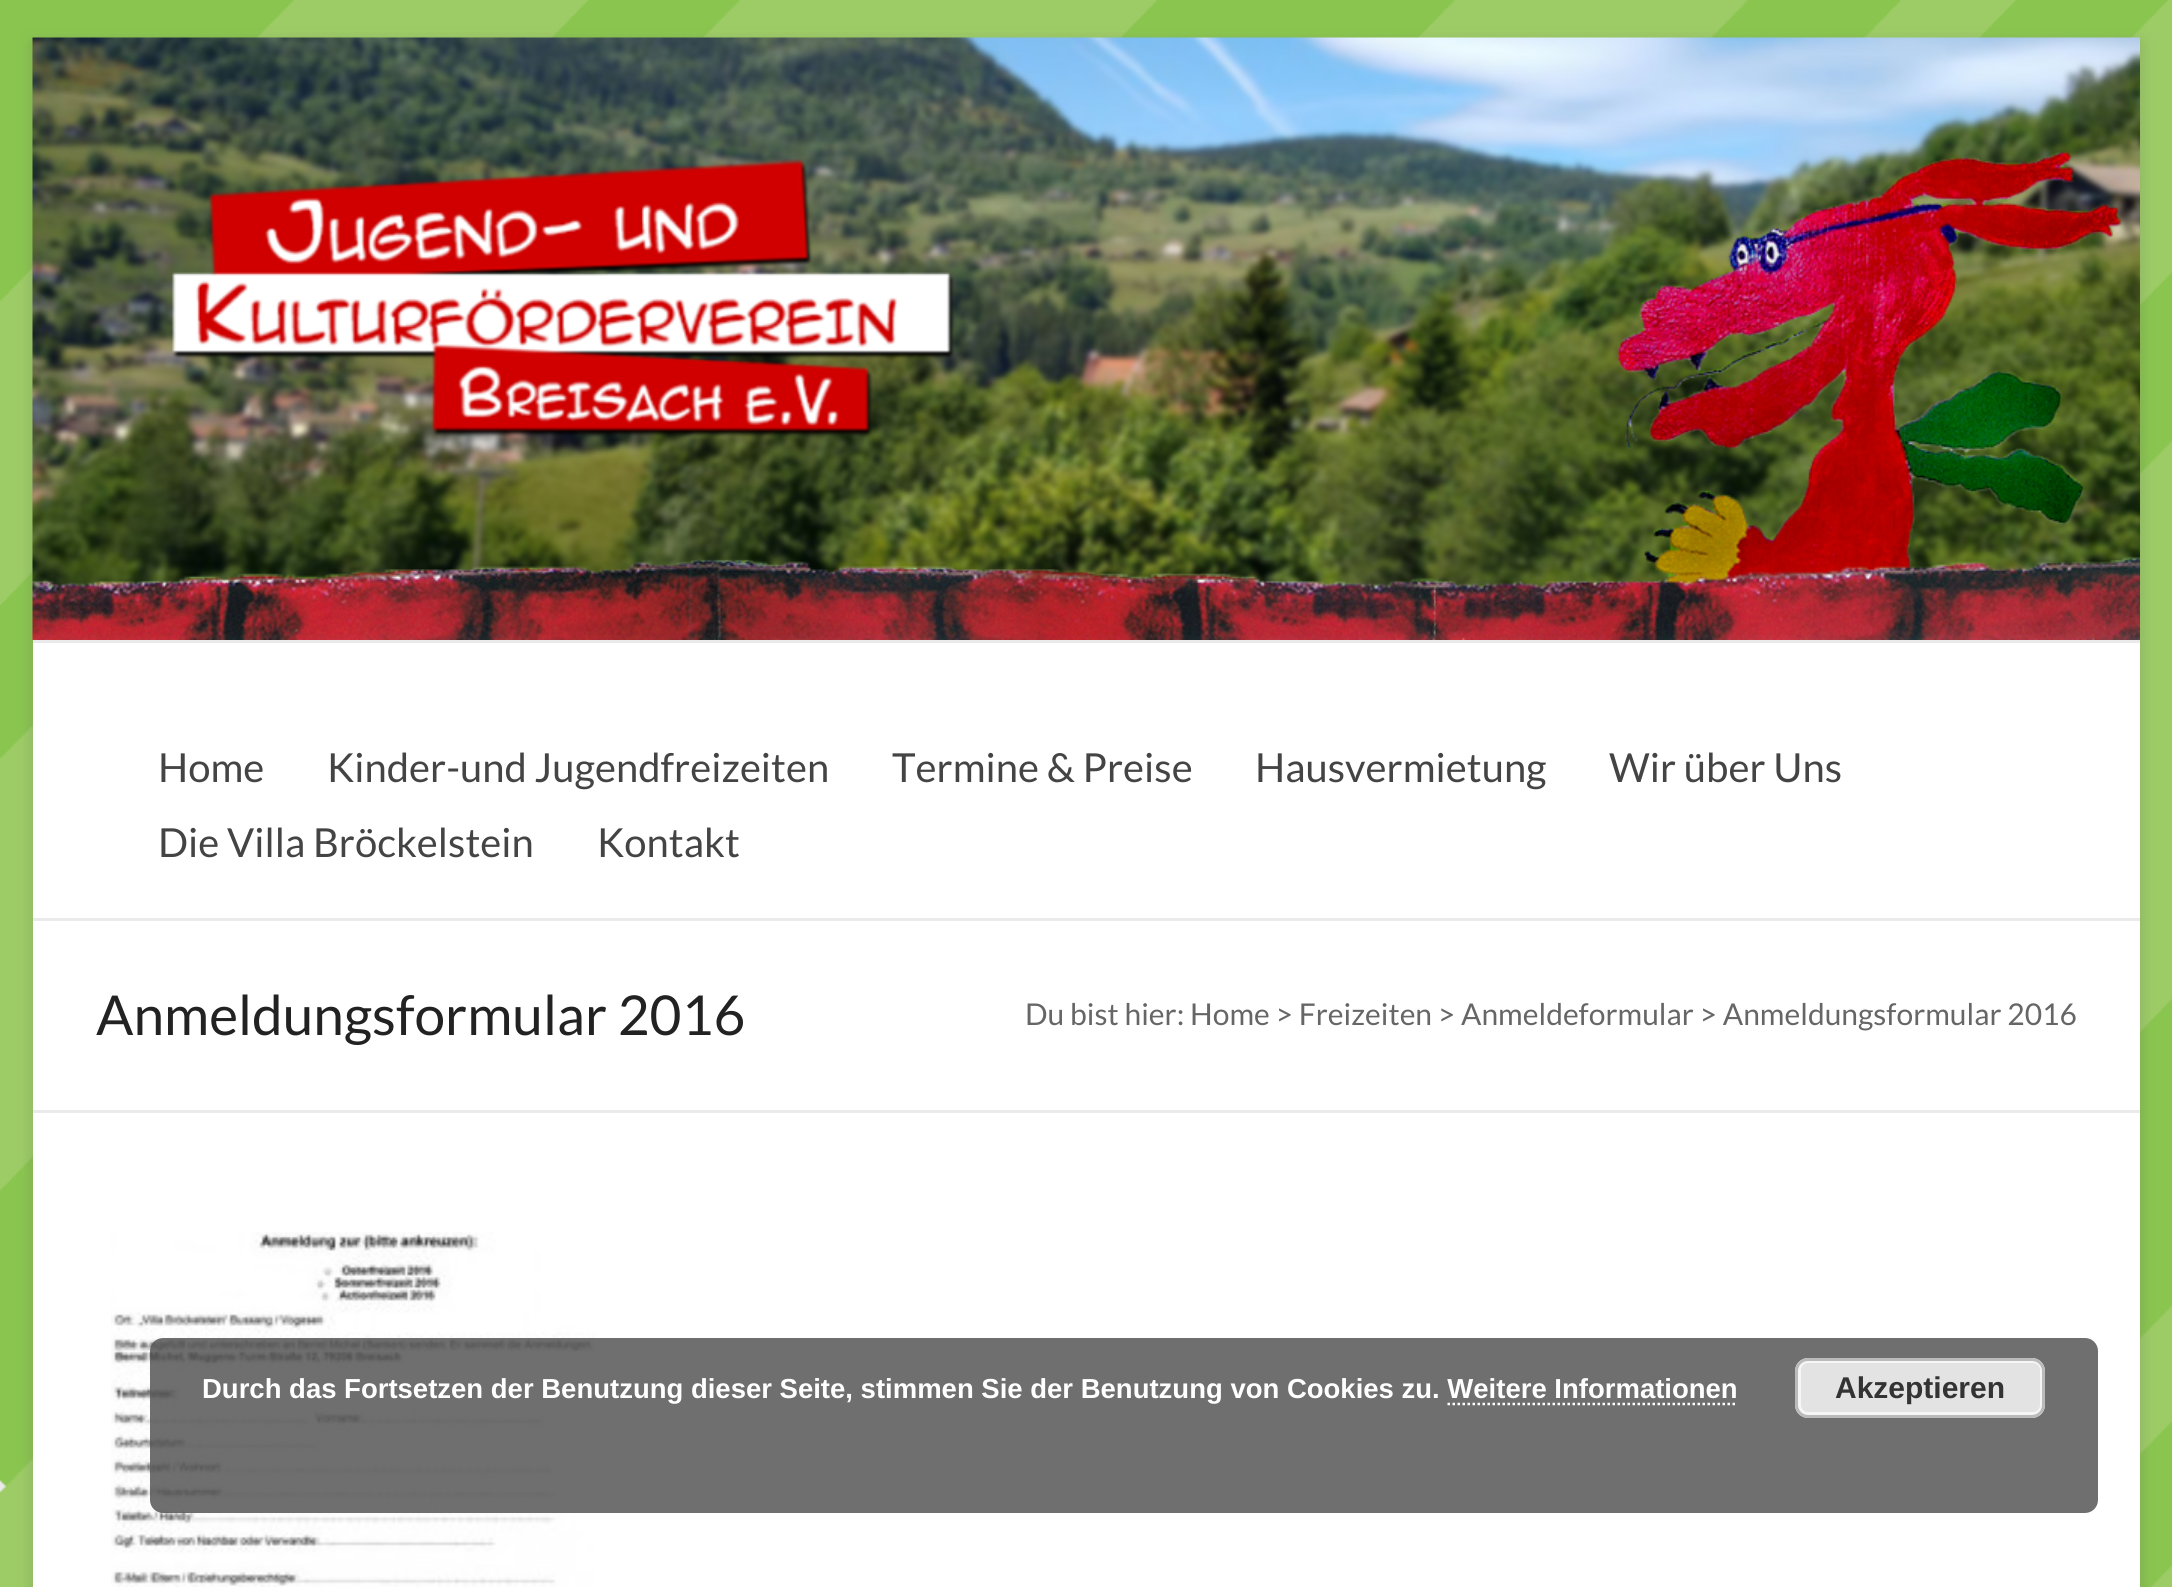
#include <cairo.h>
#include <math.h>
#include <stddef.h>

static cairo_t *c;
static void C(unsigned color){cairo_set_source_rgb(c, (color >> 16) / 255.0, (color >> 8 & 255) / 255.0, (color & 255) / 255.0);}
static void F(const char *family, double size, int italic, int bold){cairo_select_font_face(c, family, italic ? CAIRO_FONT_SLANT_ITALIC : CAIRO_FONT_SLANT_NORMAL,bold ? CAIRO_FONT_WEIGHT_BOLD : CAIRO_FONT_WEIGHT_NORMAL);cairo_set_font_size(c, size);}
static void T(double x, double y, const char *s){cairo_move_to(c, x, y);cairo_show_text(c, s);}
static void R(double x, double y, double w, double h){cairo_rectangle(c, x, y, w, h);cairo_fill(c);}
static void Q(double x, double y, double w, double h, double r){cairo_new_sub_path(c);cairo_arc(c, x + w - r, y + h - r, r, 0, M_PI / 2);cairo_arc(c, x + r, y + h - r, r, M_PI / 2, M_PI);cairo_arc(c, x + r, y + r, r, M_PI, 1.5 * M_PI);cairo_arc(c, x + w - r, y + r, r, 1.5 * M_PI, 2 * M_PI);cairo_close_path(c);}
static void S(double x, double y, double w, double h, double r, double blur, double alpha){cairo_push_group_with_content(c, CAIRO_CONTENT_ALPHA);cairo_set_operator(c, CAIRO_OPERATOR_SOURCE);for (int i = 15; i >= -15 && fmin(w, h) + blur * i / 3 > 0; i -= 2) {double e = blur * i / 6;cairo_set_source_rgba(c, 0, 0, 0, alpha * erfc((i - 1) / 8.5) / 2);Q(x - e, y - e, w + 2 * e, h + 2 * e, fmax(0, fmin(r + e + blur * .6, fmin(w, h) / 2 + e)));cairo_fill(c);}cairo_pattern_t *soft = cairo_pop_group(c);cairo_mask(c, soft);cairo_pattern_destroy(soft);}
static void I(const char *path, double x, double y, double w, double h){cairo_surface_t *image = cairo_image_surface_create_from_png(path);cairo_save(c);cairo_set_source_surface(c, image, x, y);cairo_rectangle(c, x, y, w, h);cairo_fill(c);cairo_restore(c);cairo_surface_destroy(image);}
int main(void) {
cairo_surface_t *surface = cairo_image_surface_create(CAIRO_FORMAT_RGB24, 2172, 1587);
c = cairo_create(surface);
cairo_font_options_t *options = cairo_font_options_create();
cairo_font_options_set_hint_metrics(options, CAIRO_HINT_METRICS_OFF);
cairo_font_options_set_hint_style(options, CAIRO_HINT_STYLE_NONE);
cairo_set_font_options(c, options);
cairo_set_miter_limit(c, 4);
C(0xeaeaea);
cairo_paint(c);
I("1.png",0,0,2172,1587);
C(0x646464);
S(33,43,2107,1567,0,7.5,.3);
C(0xffffff);
R(33,643,2107,944);
I("2.png",32,37,2108,603);
C(0xeaeaea);
R(33,640,2107,3);
R(33,918,2107,3);
F("Lato",40,0,0);
C(0x444444);
T(158,782,"Home");
T(327,782,"Kinder-und Jugendfreizeiten");
T(892,782,"Termine & Preise");
T(1255,782,"Hausvermietung");
T(1609,782,"Wir über Uns");
T(158,857,"Die Villa Bröckelstein");
T(597,857,"Kontakt");
C(0xeaeaea);
R(33,1110,2107,3);
F("Lato",55,0,0);
C(0x222222);
T(96,1035,"Anmeldungsformular 2016");
F("Lato",30,0,0);
C(0x666666);
T(1025,1025,"Du bist hier: Home > Freizeiten > Anmeldeformular > Anmeldungsformular 2016");
I("3.png",111,1232,484,355);
cairo_set_source_rgba(c,0.337,0.337,0.337,0.85);
Q(150,1338,1948,175,13);
cairo_fill(c);
F("Liberation Sans",27.5,0,1);
C(0xffffff);
T(202,1398,"Durch das Fortsetzen der Benutzung dieser Seite, stimmen Sie der Benutzung von Cookies zu. Weitere Informationen");
C(0xe3e3e3);
Q(1795,1358,250,60,13);
cairo_fill(c);
Q(1799.5,1361.5,242,52,8.5);
C(0xf6f6f6);
cairo_set_line_width(c,3);
cairo_stroke(c);
Q(1796.5,1359.5,247,57,11.5);
C(0xbbbbbb);
cairo_stroke(c);
F("Liberation Sans",30,0,1);
C(0x333333);
T(1835,1398,"Akzeptieren");
cairo_new_path(c);
cairo_move_to(c,1447.5,1404);
cairo_line_to(c,1737.5,1404);
C(0xffffff);
cairo_set_line_width(c,2.5);
cairo_set_dash(c,(double[]){2.5,2.5},2,0);
cairo_stroke(c);
cairo_surface_write_to_png(surface, "o.png");
cairo_font_options_destroy(options);
cairo_destroy(c);
cairo_surface_destroy(surface);
return 0;
}
